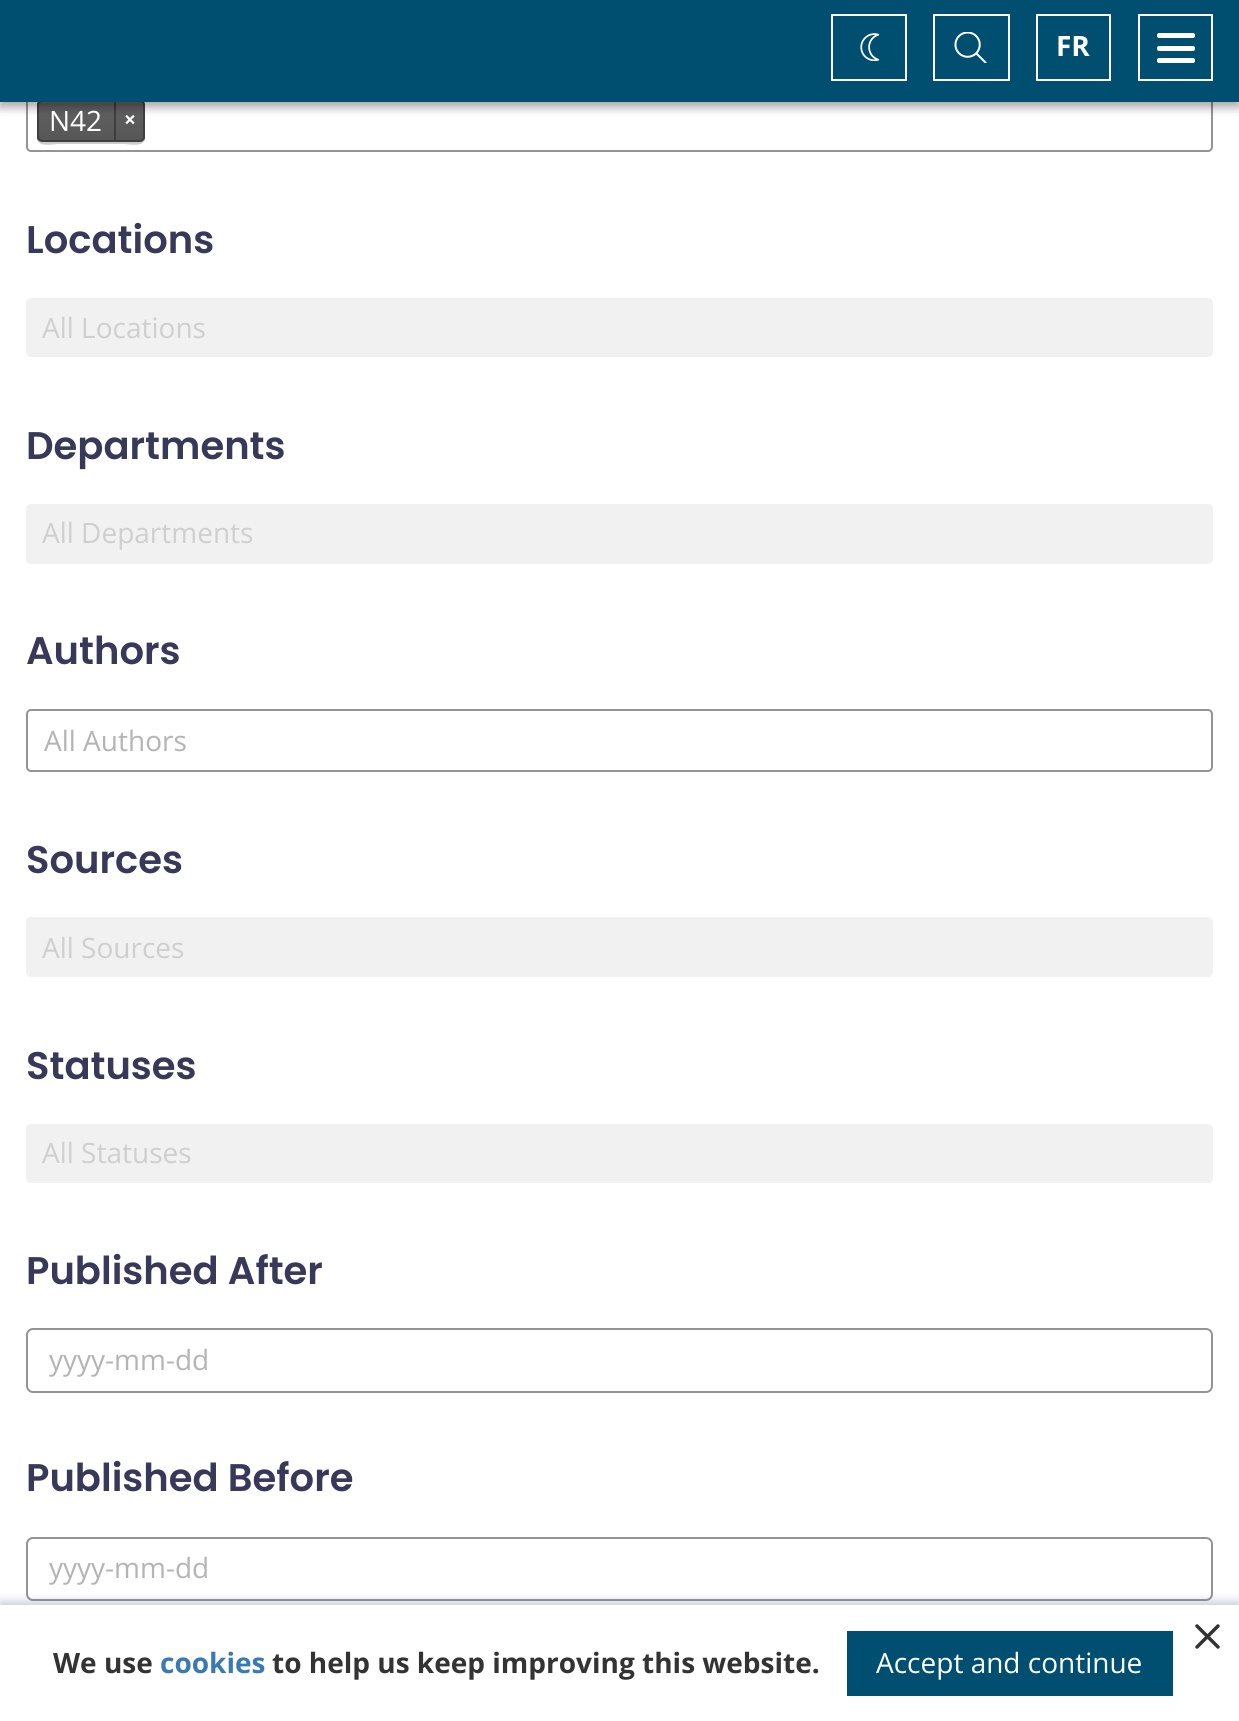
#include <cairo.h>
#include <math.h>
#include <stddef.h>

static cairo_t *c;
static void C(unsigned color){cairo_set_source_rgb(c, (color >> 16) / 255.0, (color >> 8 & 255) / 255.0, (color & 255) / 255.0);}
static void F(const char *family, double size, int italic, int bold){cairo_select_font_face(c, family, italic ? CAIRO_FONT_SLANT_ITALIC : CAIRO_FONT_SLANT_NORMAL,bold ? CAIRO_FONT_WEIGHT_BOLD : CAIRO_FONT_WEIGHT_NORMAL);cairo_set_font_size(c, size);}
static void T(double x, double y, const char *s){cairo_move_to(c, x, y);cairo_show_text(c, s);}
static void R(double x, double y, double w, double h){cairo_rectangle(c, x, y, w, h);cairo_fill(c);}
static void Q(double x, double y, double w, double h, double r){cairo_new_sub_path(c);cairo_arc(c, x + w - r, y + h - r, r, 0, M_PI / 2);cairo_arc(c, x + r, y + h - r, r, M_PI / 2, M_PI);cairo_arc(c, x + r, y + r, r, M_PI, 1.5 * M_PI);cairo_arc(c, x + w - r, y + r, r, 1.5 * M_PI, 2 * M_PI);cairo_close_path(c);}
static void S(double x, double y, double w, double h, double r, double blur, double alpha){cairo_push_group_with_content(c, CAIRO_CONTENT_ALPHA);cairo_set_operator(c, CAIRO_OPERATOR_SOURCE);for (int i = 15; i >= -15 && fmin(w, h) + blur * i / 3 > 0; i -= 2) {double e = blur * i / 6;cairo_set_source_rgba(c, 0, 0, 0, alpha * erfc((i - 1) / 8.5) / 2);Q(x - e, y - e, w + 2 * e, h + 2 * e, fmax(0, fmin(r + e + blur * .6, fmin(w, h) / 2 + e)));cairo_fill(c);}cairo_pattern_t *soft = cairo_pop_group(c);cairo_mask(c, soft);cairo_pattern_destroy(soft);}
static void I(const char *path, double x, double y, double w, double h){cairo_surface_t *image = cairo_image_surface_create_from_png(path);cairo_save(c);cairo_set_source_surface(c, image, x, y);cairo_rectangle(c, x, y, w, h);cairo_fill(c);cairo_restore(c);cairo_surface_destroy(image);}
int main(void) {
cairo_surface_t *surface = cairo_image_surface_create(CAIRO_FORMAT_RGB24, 1239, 1721);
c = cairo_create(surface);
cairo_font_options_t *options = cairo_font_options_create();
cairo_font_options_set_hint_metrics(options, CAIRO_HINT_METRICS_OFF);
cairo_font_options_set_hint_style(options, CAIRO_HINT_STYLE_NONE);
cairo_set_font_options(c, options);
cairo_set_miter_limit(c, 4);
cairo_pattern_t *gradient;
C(0xffffff);
cairo_paint(c);
Q(27,90,1185,61,4);
C(0x949494);
cairo_stroke(c);
C(0xcccccc);
cairo_new_path(c);
cairo_move_to(c,37,138);
cairo_curve_to(c,37,148,54,144,58,144);
cairo_line_to(c,124,144);
cairo_curve_to(c,128,144,145,148,145,138);
cairo_curve_to(c,144,140,142,142,140,142);
cairo_line_to(c,42,142);
cairo_curve_to(c,40,142,38,140,37,138);
cairo_close_path(c);
cairo_fill(c);
cairo_save(c);
Q(37,100,108,42,5);
cairo_clip(c);
gradient = cairo_pattern_create_linear(91,102,91,140);
cairo_pattern_add_color_stop_rgba(gradient,0,0.38,0.38,0.38,1);
cairo_pattern_add_color_stop_rgba(gradient,1,0.341,0.341,0.341,1);
cairo_set_source(c,gradient);
cairo_pattern_destroy(gradient);
R(37,102,108,38);
cairo_restore(c);
C(0x666666);
cairo_new_path(c);
cairo_move_to(c,42,103);
cairo_line_to(c,140,103);
cairo_curve_to(c,142,103,144,105,144,107);
cairo_line_to(c,144,106);
cairo_curve_to(c,144,104,142,102,140,102);
cairo_line_to(c,43,102);
cairo_curve_to(c,42,102,40,103,40,104);
cairo_close_path(c);
cairo_fill(c);
Q(38,101,106,40,4);
C(0x3e3e3e);
cairo_stroke(c);
R(114,102,2,38);
C(0x000000);
S(0,5,1239,102,0,5,.23);
S(0,5,1239,102,0,5,.16);
C(0x004f71);
R(0,0,1239,102);
cairo_rectangle(c,832,15,74,65);
C(0xffffff);
cairo_stroke(c);
I("1.png",860,33,20,28);
cairo_rectangle(c,934,15,75,65);
cairo_stroke(c);
I("2.png",954,32,33,31);
cairo_rectangle(c,1037,15,73,65);
cairo_stroke(c);
F("Open Sans",28,0,1);
T(1056,56,"FR");
cairo_rectangle(c,1139,15,73,65);
cairo_stroke(c);
Q(1157,33,38,5,2);
cairo_fill(c);
Q(1157,46,38,5,2);
cairo_fill(c);
Q(1157,58,38,5,2);
cairo_fill(c);
F("Open Sans",28,0,0);
T(49,131,"N42");
F("Open Sans",21,0,1);
T(124,127,"×");
F("Poppins SemiBold",38.5,0,0);
C(0x383859);
T(26,253,"Locations");
C(0xf1f1f1);
Q(26,298,1187,59,5);
cairo_fill(c);
F("Open Sans",28,0,0);
C(0xcfcfcf);
T(42,338,"All Locations");
F("Poppins SemiBold",38.5,0,0);
C(0x383859);
T(26,459,"Departments");
C(0xf1f1f1);
Q(26,504,1187,60,5);
cairo_fill(c);
F("Open Sans",28,0,0);
C(0xcfcfcf);
T(42,543,"All Departments");
F("Poppins SemiBold",38.5,0,0);
C(0x383859);
T(26,664,"Authors");
Q(27,710,1185,61,4);
C(0x949494);
cairo_stroke(c);
F("Open Sans",28,0,0);
C(0xb4b4b4);
T(44,751,"All Authors");
F("Poppins SemiBold",38.5,0,0);
C(0x383859);
T(26,873,"Sources");
C(0xf1f1f1);
Q(26,917,1187,60,5);
cairo_fill(c);
F("Open Sans",28,0,0);
C(0xcfcfcf);
T(42,958,"All Sources");
F("Poppins SemiBold",38.5,0,0);
C(0x383859);
T(26,1079,"Statuses");
C(0xf1f1f1);
Q(26,1124,1187,59,5);
cairo_fill(c);
F("Open Sans",28,0,0);
C(0xcfcfcf);
T(42,1163,"All Statuses");
F("Poppins SemiBold",38.5,0,0);
C(0x383859);
T(26,1284,"Published After");
Q(27,1329,1185,63,6);
C(0x949494);
cairo_stroke(c);
F("Open Sans",28,0,0);
C(0xb4b4b4);
T(49,1370,"yyyy-mm-dd");
F("Poppins SemiBold",38.5,0,0);
C(0x383859);
T(26,1491,"Published Before");
Q(27,1538,1185,62,6);
C(0x949494);
cairo_stroke(c);
F("Open Sans",28,0,0);
C(0xb4b4b4);
T(49,1578,"yyyy-mm-dd");
cairo_save(c);
cairo_rectangle(c,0,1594,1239,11);
cairo_clip(c);
C(0x4f6090);
S(0,1601,1239,118,0,4.5,.3);
cairo_restore(c);
cairo_new_path(c);
cairo_move_to(c,1218,1626);
cairo_line_to(c,1197,1647);
cairo_move_to(c,1197,1626);
cairo_line_to(c,1218,1647);
C(0x333333);
cairo_set_line_width(c,3.5);
cairo_set_line_cap(c,CAIRO_LINE_CAP_ROUND);
cairo_set_line_join(c,CAIRO_LINE_JOIN_ROUND);
cairo_stroke(c);
F("Open Sans",28,0,1);
T(53,1673,"We use");
C(0x397ab2);
T(160,1673,"cookies");
C(0x333333);
T(272,1673,"to help us keep improving this website.");
C(0x004f71);
R(847,1631,326,65);
F("Open Sans",28,0,0);
C(0xffffff);
T(876,1673,"Accept and continue");
cairo_surface_write_to_png(surface, "o.png");
cairo_font_options_destroy(options);
cairo_destroy(c);
cairo_surface_destroy(surface);
return 0;
}
